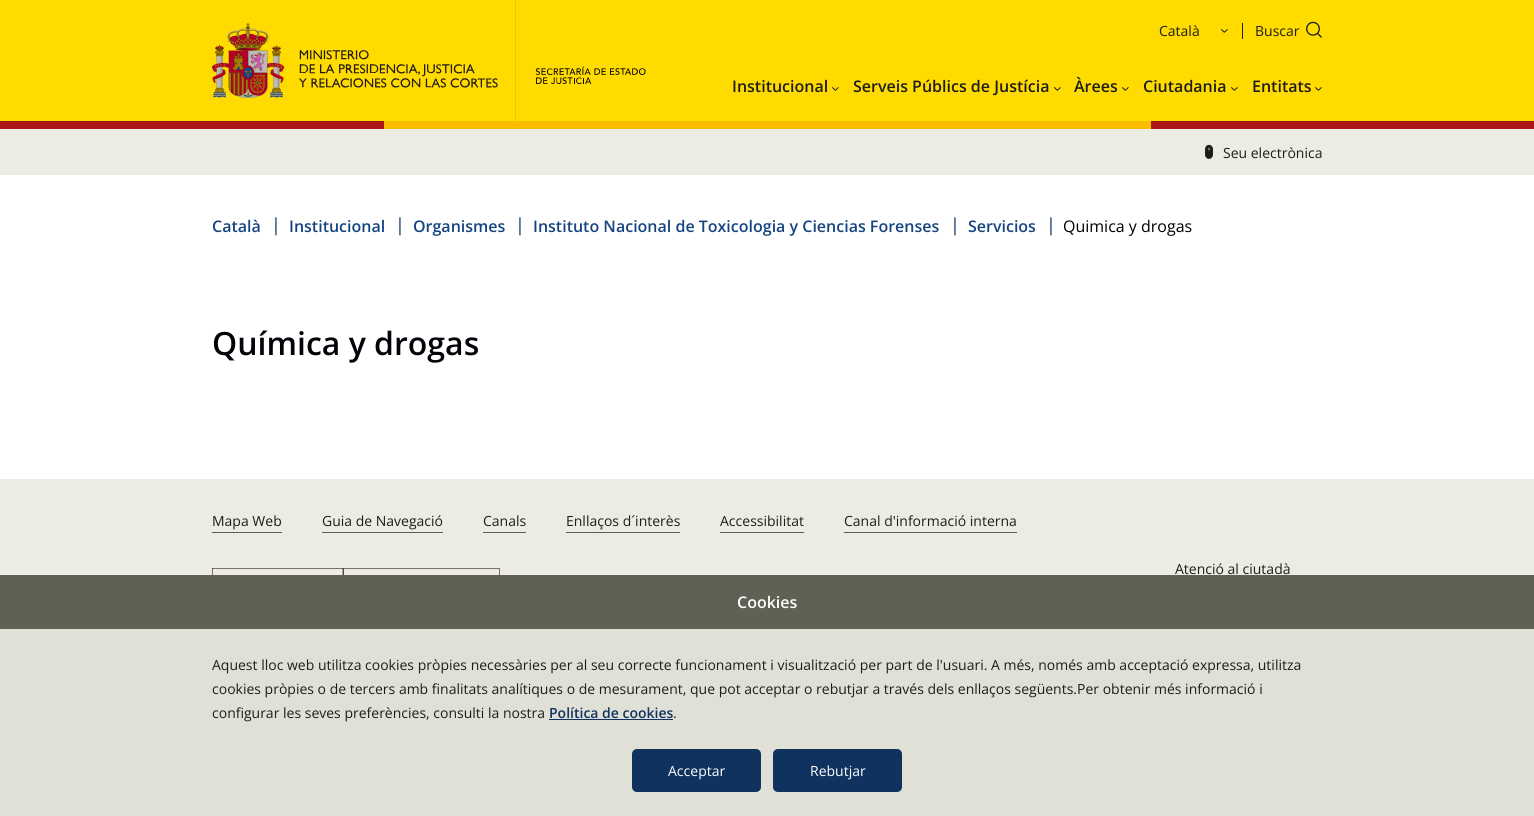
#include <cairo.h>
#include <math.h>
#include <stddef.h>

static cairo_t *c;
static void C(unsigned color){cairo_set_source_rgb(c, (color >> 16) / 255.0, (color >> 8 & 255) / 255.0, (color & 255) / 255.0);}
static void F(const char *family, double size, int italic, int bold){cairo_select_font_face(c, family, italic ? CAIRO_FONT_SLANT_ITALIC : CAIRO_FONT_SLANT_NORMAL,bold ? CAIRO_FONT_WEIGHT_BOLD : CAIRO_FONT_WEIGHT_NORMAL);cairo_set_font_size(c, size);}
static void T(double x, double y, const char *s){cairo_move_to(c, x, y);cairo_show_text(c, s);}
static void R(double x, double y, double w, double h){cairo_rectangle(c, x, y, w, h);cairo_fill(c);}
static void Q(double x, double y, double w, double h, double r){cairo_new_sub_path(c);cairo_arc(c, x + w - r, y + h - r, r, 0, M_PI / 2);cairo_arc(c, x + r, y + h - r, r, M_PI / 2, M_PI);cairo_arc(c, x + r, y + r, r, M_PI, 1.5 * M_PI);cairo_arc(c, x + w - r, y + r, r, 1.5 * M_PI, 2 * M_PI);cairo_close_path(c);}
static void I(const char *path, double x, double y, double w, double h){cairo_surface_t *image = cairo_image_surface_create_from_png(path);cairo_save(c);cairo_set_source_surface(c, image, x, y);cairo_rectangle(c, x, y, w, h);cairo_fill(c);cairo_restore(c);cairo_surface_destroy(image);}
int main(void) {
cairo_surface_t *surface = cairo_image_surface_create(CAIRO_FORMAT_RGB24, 1534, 816);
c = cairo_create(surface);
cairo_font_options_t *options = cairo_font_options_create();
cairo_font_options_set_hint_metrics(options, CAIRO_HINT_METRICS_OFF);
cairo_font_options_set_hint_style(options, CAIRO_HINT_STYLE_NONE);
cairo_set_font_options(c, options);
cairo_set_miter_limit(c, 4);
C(0xffffff);
cairo_paint(c);
C(0xffdb00);
R(0,0,1534,121);
I("1.png",212,23,286,75);
C(0xfabd00);
R(515,0,1,122);
I("2.png",535,66,111,19);
F("Open Sans",14,0,0);
C(0x1d1d1b);
T(1159,36,"Català");
I("3.png",1221,29,7,4);
R(1242,23,1,16);
T(1255,36,"Buscar");
I("4.png",1306,21,16,17);
F("Open Sans SemiBold",16,0,0);
T(732,92,"Institucional");
I("3.png",832,87,7,4);
T(853,92,"Serveis Públics de Justícia");
I("3.png",1054,87,7,4);
T(1074,92,"Àrees");
I("3.png",1122,87,7,4);
T(1143,92,"Ciutadania");
I("3.png",1231,87,7,4);
T(1252,92,"Entitats");
I("3.png",1315,87,7,4);
C(0xfabd00);
R(384,121,767,8);
C(0xad1519);
R(0,121,384,8);
R(1151,121,383,8);
C(0xecece2);
R(0,129,1534,46);
I("5.png",1205,144,8,15);
F("Open Sans",14,0,0);
C(0x1d1d1b);
T(1223,158,"Seu electrònica");
F("Open Sans SemiBold",16,0,0);
C(0x154481);
T(212,232,"Català");
F("Open Sans",18,0,0);
C(0x10325f);
T(271,231,"|");
F("Open Sans SemiBold",16,0,0);
C(0x154481);
T(289,232,"Institucional");
F("Open Sans",18,0,0);
C(0x10325f);
T(395,231,"|");
F("Open Sans SemiBold",16,0,0);
C(0x154481);
T(413,232,"Organismes");
F("Open Sans",18,0,0);
C(0x10325f);
T(515,231,"|");
F("Open Sans SemiBold",16,0,0);
C(0x154481);
T(533,232,"Instituto Nacional de Toxicologia y Ciencias Forenses");
F("Open Sans",18,0,0);
C(0x10325f);
T(950,231,"|");
F("Open Sans SemiBold",16,0,0);
C(0x154481);
T(968,232,"Servicios");
F("Open Sans",18,0,0);
C(0x10325f);
T(1046,231,"|");
F("Open Sans",16,0,0);
C(0x000000);
T(1063,232,"Quimica y drogas");
F("Open Sans SemiBold",32,0,0);
C(0x010309);
T(212,355,"Química y drogas");
C(0xecece2);
R(0,479,1534,96);
F("Open Sans",14,0,0);
C(0x1d1d1b);
T(212,526,"Mapa Web");
C(0x5b5b57);
R(212,532,70,1);
C(0x1d1d1b);
T(322,526,"Guia de Navegació");
C(0x5b5b57);
R(322,532,121,1);
C(0x1d1d1b);
T(483,526,"Canals");
C(0x5b5b57);
R(483,532,43,1);
C(0x1d1d1b);
T(566,526,"Enllaços d´interès");
C(0x5b5b57);
R(566,532,114,1);
C(0x1d1d1b);
T(720,526,"Accessibilitat");
C(0x5b5b57);
R(720,532,84,1);
C(0x1d1d1b);
T(844,526,"Canal d'informació interna");
C(0x5b5b57);
R(844,532,173,1);
I("6.png",212,568,288,7);
C(0x1d1d1b);
T(1175,574,"Atenció al ciutadà");
C(0xe0e0d7);
R(0,629,1534,187);
C(0x606055);
R(0,575,1534,54);
F("Open Sans SemiBold",16,0,0);
C(0xffffff);
T(737,608,"Cookies");
F("Open Sans",14,0,0);
C(0x1d1d1b);
T(212,670,"Aquest lloc web utilitza cookies pròpies necessàries per al seu correcte funcionament i visualització per part de l'usuari. A més, només amb acceptació expressa, utilitza");
T(212,694,"cookies pròpies o de tercers amb finalitats analítiques o de mesurament, que pot acceptar o rebutjar a través dels enllaços següents.Per obtenir més informació i");
T(212,718,"configurar les seves preferències, consulti la nostra");
F("Open Sans SemiBold",14,0,0);
C(0x10325f);
T(549,718,"Política de cookies");
R(549,719,124,1);
F("Open Sans",14,0,0);
C(0x1d1d1b);
T(673,718,".");
C(0x10325f);
Q(632,749,129,43,5);
cairo_fill(c);
C(0xffffff);
T(668,776,"Acceptar");
C(0x10325f);
Q(773,749,129,43,5);
cairo_fill(c);
C(0xffffff);
T(810,776,"Rebutjar");
cairo_surface_write_to_png(surface, "o.png");
cairo_font_options_destroy(options);
cairo_destroy(c);
cairo_surface_destroy(surface);
return 0;
}
